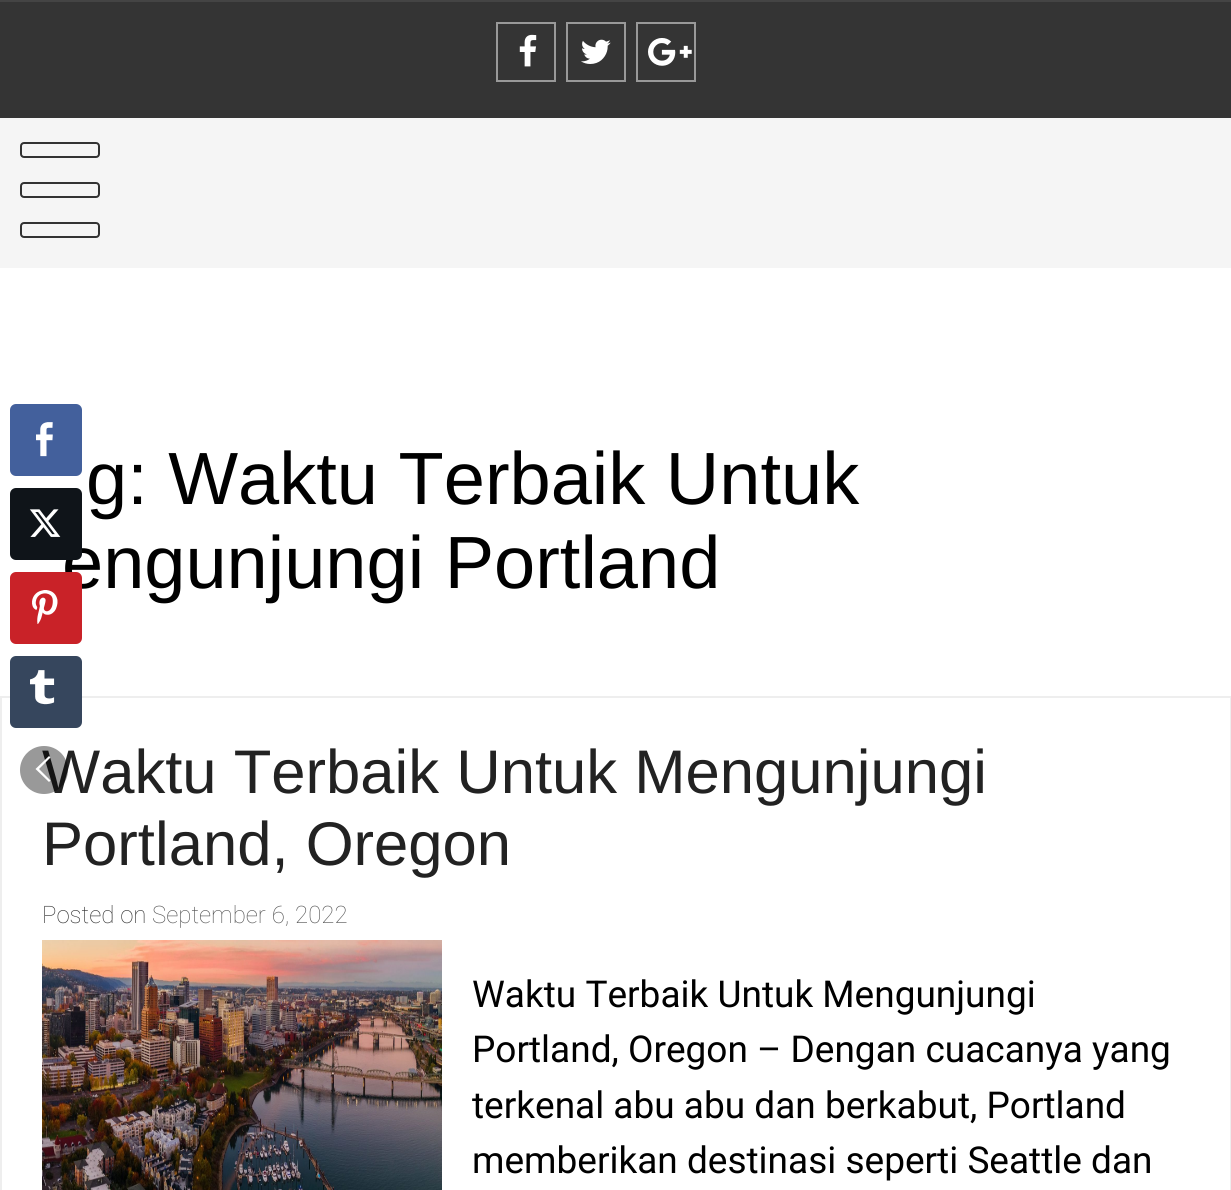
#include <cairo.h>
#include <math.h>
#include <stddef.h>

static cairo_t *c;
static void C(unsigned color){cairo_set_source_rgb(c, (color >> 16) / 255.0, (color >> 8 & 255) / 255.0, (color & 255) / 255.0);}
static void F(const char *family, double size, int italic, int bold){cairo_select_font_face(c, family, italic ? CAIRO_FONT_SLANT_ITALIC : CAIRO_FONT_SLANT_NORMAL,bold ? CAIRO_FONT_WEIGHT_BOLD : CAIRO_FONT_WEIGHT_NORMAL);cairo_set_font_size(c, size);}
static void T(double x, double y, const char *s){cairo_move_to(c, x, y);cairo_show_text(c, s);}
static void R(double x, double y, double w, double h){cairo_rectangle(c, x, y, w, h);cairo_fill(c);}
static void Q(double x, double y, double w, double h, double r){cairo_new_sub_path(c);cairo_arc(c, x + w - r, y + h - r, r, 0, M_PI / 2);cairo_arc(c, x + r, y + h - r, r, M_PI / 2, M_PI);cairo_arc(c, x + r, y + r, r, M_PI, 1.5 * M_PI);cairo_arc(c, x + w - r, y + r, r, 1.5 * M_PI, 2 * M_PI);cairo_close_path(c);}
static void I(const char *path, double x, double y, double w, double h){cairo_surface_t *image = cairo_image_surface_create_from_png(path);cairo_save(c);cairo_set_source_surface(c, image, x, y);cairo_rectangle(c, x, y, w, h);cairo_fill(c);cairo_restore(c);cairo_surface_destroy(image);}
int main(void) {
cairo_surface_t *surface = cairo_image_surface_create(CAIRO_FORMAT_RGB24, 1231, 1190);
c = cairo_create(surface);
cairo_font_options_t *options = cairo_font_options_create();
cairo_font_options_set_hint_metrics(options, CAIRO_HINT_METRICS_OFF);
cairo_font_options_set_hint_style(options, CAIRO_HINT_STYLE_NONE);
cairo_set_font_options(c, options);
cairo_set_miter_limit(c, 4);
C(0xffffff);
cairo_paint(c);
C(0x43609c);
Q(10,404,72,72,6);
cairo_fill(c);
I("1.png",36,422,17,35);
F("Liberation Sans",74,0,0);
C(0x000000);
T(62,588,"engunjungi Portland");
C(0x0f1419);
Q(10,488,72,72,6);
cairo_fill(c);
I("2.png",29,509,32,28);
C(0xc92228);
Q(10,572,72,72,6);
cairo_fill(c);
I("3.png",32,590,26,34);
cairo_rectangle(c,1,697,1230,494);
C(0xeeeeee);
cairo_stroke(c);
C(0x36465d);
Q(10,656,72,72,6);
cairo_fill(c);
I("4.png",30,670,25,35);
F("Liberation Sans",61.6,0,0);
C(0x222222);
T(42,793,"Waktu Terbaik Untuk Mengunjungi");
cairo_set_source_rgba(c,0,0,0,0.4);
cairo_new_path(c);
cairo_arc(c,44,770,24,0,2 * M_PI);
cairo_fill(c);
C(0xffffff);
cairo_new_path(c);
cairo_move_to(c,50.5,757.5);
cairo_line_to(c,49,756);
cairo_line_to(c,35.5,769);
cairo_line_to(c,49,782);
cairo_line_to(c,50.5,780.5);
cairo_line_to(c,39,769);
cairo_fill(c);
C(0x343434);
R(0,2,1231,116);
C(0x444444);
R(0,0,1231,2);
cairo_rectangle(c,497,23,58,58);
C(0x999999);
cairo_stroke(c);
I("5.png",519,34,18,33);
cairo_rectangle(c,567,23,58,58);
cairo_stroke(c);
I("6.png",581,39,30,25);
cairo_rectangle(c,637,23,58,58);
cairo_stroke(c);
I("7.png",648,38,44,28);
C(0xf5f5f5);
R(0,118,1231,150);
Q(21,143,78,14,3);
C(0x333333);
cairo_stroke(c);
Q(21,183,78,14,3);
cairo_stroke(c);
Q(21,223,78,14,3);
cairo_stroke(c);
F("Liberation Sans",74,0,0);
C(0x000000);
T(86,504,"g: Waktu Terbaik Untuk");
F("Liberation Sans",61.6,0,0);
C(0x222222);
T(42,865,"Portland, Oregon");
F("Roboto Thin",24,0,0);
C(0x333333);
T(42,923,"Posted on");
C(0x555555);
T(152,923,"September 6, 2022");
I("8.png",42,940,400,250);
F("Roboto",37,0,0);
C(0x000000);
T(472,1007,"Waktu Terbaik Untuk Mengunjungi");
T(472,1062,"Portland, Oregon – Dengan cuacanya yang");
T(472,1118,"terkenal abu abu dan berkabut, Portland");
T(472,1173,"memberikan destinasi seperti Seattle dan");
cairo_surface_write_to_png(surface, "o.png");
cairo_font_options_destroy(options);
cairo_destroy(c);
cairo_surface_destroy(surface);
return 0;
}
